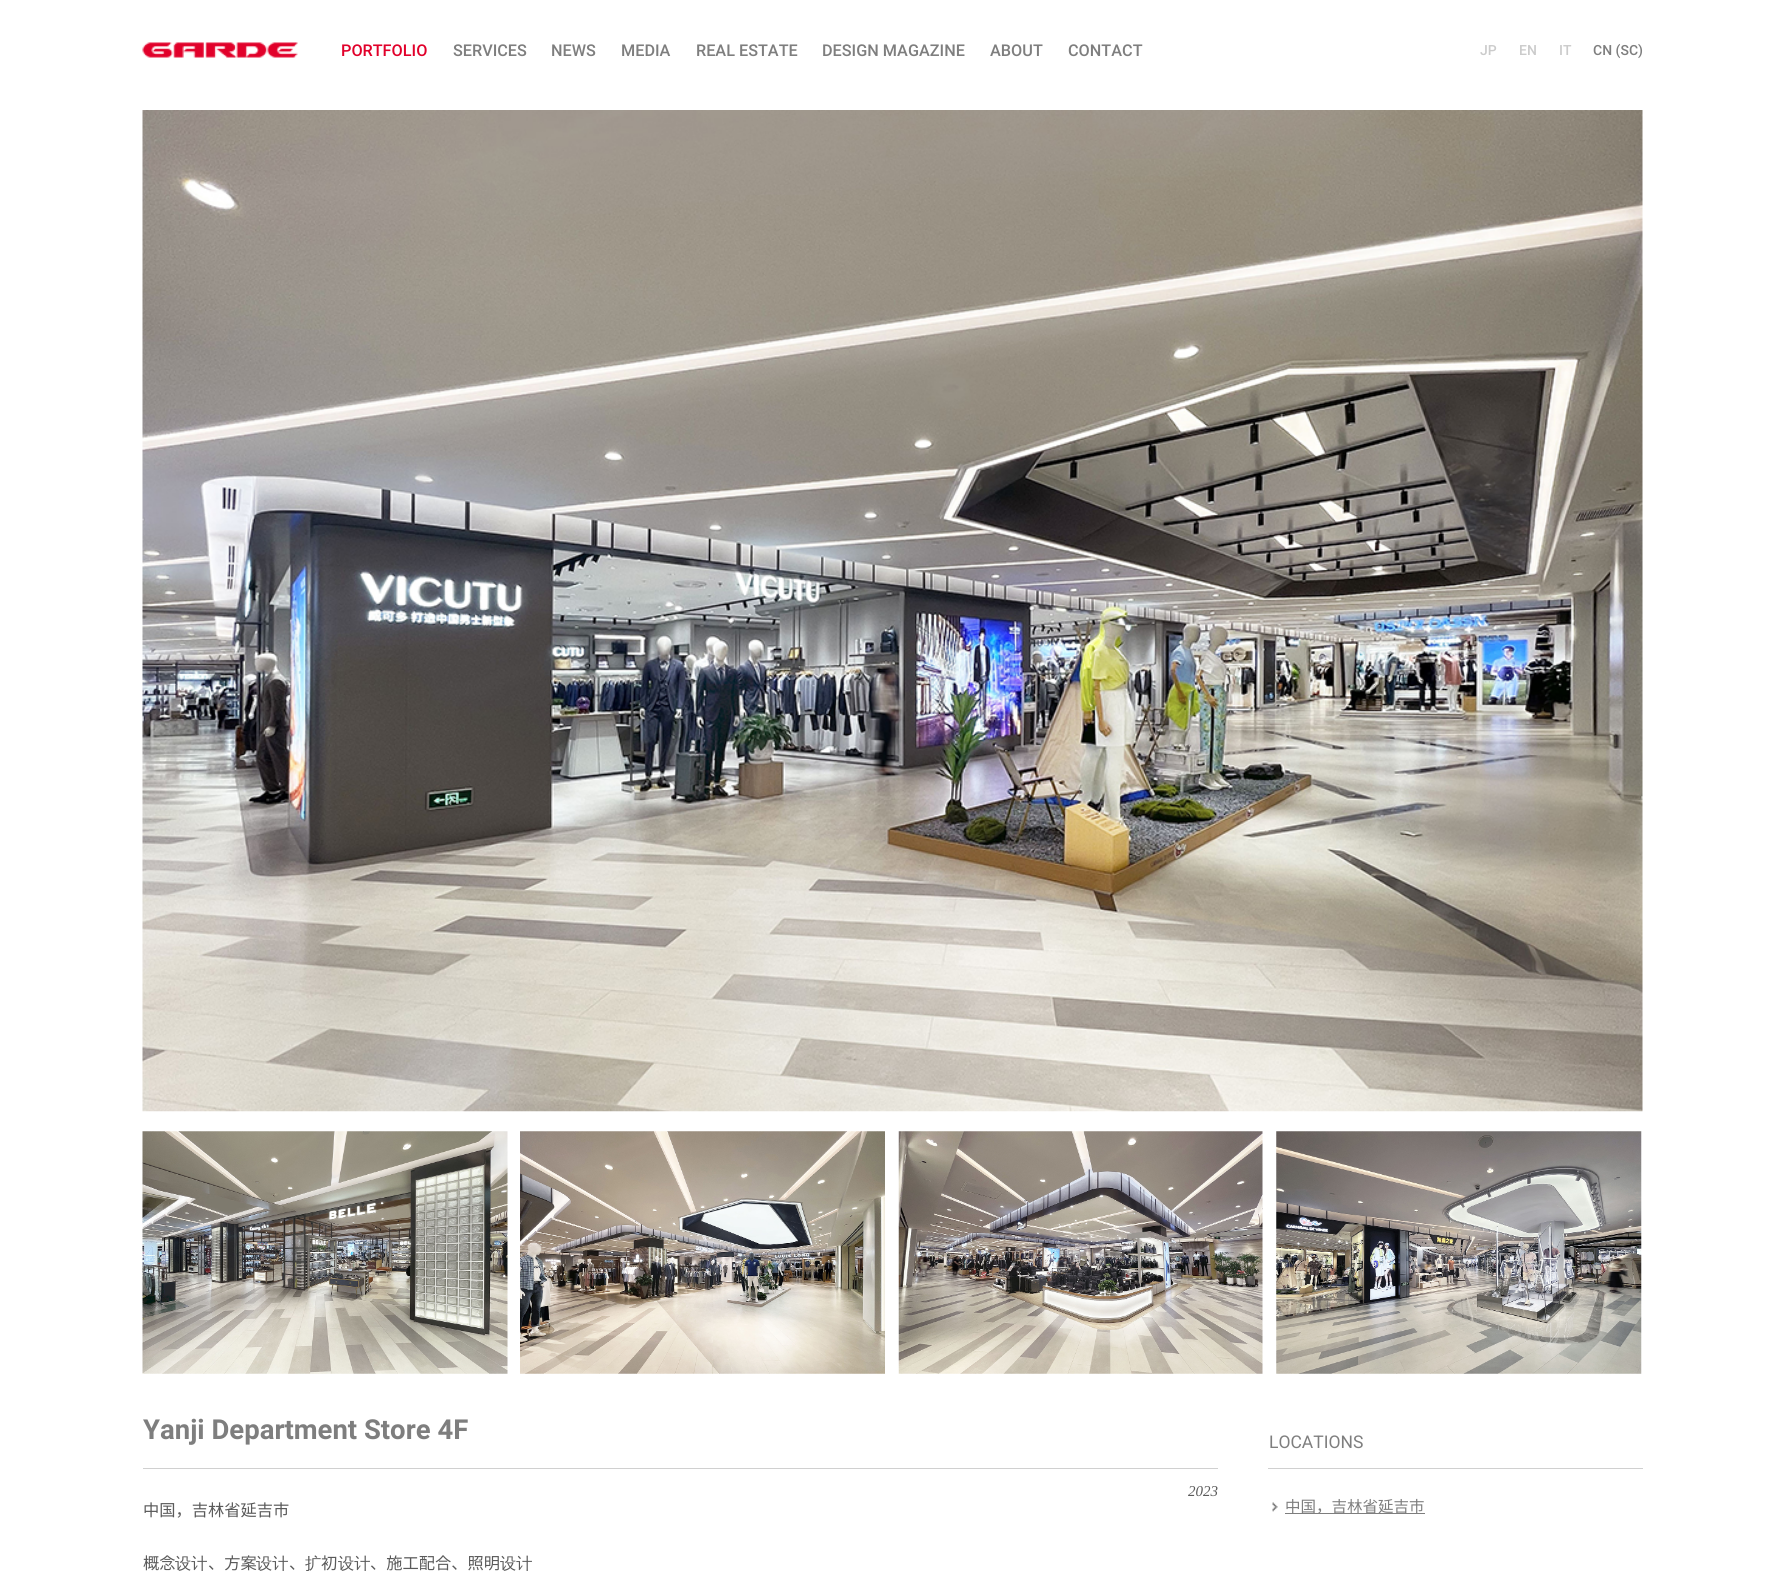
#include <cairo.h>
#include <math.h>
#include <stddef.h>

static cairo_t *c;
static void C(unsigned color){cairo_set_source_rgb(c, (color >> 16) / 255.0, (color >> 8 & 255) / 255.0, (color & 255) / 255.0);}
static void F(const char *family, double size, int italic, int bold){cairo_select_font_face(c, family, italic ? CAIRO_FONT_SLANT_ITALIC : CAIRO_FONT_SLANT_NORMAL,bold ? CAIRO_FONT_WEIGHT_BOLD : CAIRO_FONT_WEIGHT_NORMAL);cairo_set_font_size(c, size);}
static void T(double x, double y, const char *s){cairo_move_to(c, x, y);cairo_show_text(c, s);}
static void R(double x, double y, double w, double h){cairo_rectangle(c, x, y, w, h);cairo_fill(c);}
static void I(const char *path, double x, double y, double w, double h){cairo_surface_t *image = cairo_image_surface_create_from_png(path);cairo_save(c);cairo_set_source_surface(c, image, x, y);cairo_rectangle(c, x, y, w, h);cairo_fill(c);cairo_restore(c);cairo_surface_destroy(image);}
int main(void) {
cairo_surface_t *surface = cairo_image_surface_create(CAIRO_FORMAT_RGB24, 1784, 1571);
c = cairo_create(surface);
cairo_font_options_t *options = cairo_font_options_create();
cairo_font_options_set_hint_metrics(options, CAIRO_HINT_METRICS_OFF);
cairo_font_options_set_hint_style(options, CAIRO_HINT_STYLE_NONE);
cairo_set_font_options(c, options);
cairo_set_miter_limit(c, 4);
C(0xffffff);
cairo_paint(c);
I("1.png",142,42,156,16);
F("Roboto Medium",16.25,0,0);
C(0xe1002a);
T(341,56,"PORTFOLIO");
C(0x7e7e7e);
T(453,56,"SERVICES");
T(551,56,"NEWS");
T(621,56,"MEDIA");
T(696,56,"REAL ESTATE");
T(822,56,"DESIGN MAGAZINE");
T(990,56,"ABOUT");
T(1068,56,"CONTACT");
F("Roboto Medium",14,0,0);
C(0xcbcbcb);
T(1480,55,"JP");
T(1519,55,"EN");
T(1559,55,"IT");
C(0x7e7e7e);
T(1593,55,"CN (SC)");
I("2.png",142,110,1501,1002);
I("3.png",142,1131,366,243);
I("4.png",520,1131,365,243);
I("5.png",898,1131,365,243);
I("6.png",1276,1131,366,243);
C(0xd0d0d0);
R(143,1468,1075,1);
F("Roboto",27.5,0,1);
C(0x7e7e7e);
T(143,1439,"Yanji Department Store 4F");
F("Liberation Serif",15,1,0);
C(0x5a5a5a);
T(1188,1496,"2023");
F("Noto Sans JP",16.25,0,0);
T(143,1516,"中国，吉林省延吉市");
T(143,1569,"概念");
F("WenQuanYi Zen Hei Medium",16.25,0,0);
T(175,1569,"设计");
F("Noto Sans JP",16.25,0,0);
T(208,1569,"、方案");
F("WenQuanYi Zen Hei Medium",16.25,0,0);
T(256,1569,"设计");
F("Noto Sans JP",16.25,0,0);
T(289,1569,"、");
F("WenQuanYi Zen Hei Medium",16.25,0,0);
T(305,1569,"扩");
F("Noto Sans JP",16.25,0,0);
T(321,1569,"初");
F("WenQuanYi Zen Hei Medium",16.25,0,0);
T(338,1569,"设计");
F("Noto Sans JP",16.25,0,0);
T(370,1569,"、施工配合、照明");
F("WenQuanYi Zen Hei Medium",16.25,0,0);
T(500,1569,"设计");
C(0xd0d0d0);
R(1268,1468,375,1);
F("Roboto",17.5,0,0);
C(0x7e7e7e);
T(1269,1448,"LOCATIONS");
I("7.png",1272,1502,6,10);
R(1285,1513,140,1);
F("Noto Sans JP",15.5,0,0);
T(1285,1512,"中国，吉林省延吉市");
cairo_surface_write_to_png(surface, "o.png");
cairo_font_options_destroy(options);
cairo_destroy(c);
cairo_surface_destroy(surface);
return 0;
}
